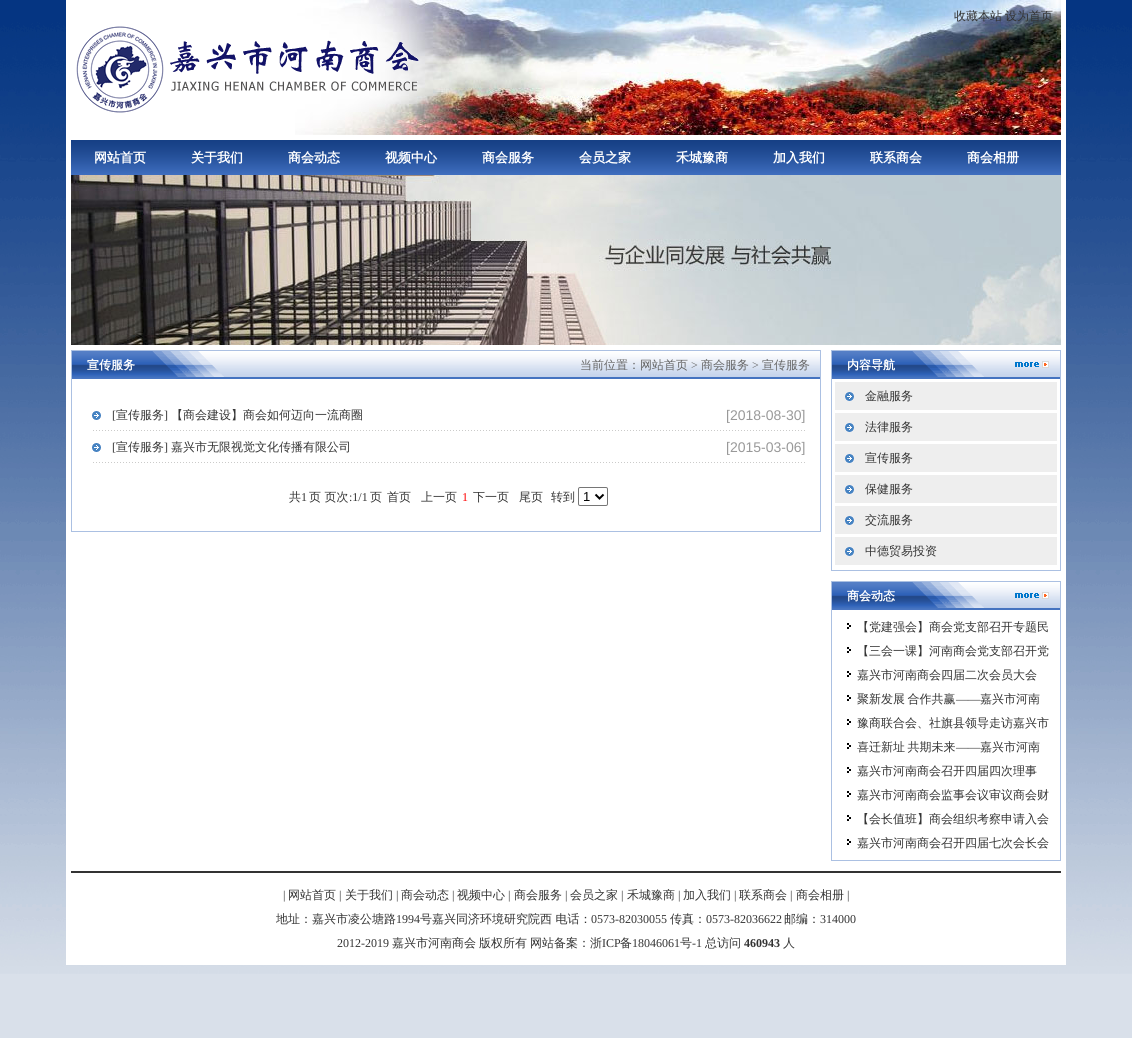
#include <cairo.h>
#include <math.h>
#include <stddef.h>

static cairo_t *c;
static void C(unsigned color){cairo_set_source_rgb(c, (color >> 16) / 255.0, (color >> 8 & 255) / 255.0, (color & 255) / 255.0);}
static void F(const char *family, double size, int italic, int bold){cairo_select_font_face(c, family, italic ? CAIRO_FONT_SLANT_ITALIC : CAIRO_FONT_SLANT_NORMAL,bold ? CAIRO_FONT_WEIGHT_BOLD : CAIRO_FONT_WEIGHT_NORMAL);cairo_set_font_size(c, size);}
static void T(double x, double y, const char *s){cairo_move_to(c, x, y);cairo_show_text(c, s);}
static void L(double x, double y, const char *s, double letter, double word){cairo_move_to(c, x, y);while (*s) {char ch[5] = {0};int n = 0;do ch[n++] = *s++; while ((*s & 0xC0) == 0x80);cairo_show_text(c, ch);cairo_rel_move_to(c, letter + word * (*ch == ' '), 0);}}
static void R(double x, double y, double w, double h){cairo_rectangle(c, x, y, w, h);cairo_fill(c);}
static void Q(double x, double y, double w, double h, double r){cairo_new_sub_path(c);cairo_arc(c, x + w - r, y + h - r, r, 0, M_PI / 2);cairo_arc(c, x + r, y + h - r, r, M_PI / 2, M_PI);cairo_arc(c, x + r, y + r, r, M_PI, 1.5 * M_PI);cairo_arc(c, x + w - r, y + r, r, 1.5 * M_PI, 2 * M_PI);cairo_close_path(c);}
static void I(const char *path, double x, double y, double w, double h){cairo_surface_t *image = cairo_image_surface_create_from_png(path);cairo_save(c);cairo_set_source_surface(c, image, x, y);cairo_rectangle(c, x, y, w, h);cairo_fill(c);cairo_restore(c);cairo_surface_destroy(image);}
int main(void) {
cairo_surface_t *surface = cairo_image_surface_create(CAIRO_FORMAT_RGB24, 1132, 1038);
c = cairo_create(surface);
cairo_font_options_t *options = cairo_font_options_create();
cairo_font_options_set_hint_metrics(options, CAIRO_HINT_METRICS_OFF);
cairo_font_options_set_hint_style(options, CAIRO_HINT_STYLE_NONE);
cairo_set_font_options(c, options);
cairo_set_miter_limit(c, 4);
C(0xd9e0ea);
cairo_paint(c);
I("1.png",0,0,1132,974);
C(0xffffff);
R(66,0,1000,965);
I("2.png",295,0,766,135);
F("WenQuanYi Zen Hei Medium",12,0,0);
C(0x333333);
T(954,20,"收藏本站");
T(1005,20,"设为首页");
I("3.png",76,26,343,87);
I("4.png",71,140,990,35);
F("WenQuanYi Zen Hei",13,0,1);
C(0xffffff);
T(94,162,"网站首页");
T(191,162,"关于我们");
T(288,162,"商会动态");
T(385,162,"视频中心");
T(482,162,"商会服务");
T(579,162,"会员之家");
T(676,162,"禾城豫商");
T(773,162,"加入我们");
T(870,162,"联系商会");
T(967,162,"商会相册");
I("5.png",71,175,990,170);
cairo_rectangle(c,71.5,350.5,749,181);
C(0xabc0e2);
cairo_set_line_width(c,1);
cairo_stroke(c);
I("6.png",72,351,748,28);
F("WenQuanYi Zen Hei",12,0,1);
C(0xffffff);
T(87,369,"宣传服务");
F("WenQuanYi Zen Hei Medium",12,0,0);
C(0x666666);
T(580,369,"当前位置：网站首页");
F("Liberation Serif",12,0,0);
T(691,369,">");
F("WenQuanYi Zen Hei Medium",12,0,0);
T(701,369,"商会服务");
F("Liberation Serif",12,0,0);
T(752,369,">");
F("WenQuanYi Zen Hei Medium",12,0,0);
T(762,369,"宣传服务");
I("7.png",93,430,712,1);
I("8.png",92,411,9,9);
F("Liberation Serif",12,0,0);
C(0x333333);
T(112,419,"[");
F("WenQuanYi Zen Hei Medium",12,0,0);
T(116,419,"宣传服务");
F("Liberation Serif",12,0,0);
T(164,419,"]");
F("WenQuanYi Zen Hei Medium",12,0,0);
T(171,419,"【商会建设】商会如何迈向一流商圈");
F("Liberation Sans",14,0,0);
C(0x999999);
T(726,420,"[2018-08-30]");
I("7.png",93,462,712,1);
I("8.png",92,443,9,9);
F("Liberation Serif",12,0,0);
C(0x333333);
T(112,451,"[");
F("WenQuanYi Zen Hei Medium",12,0,0);
T(116,451,"宣传服务");
F("Liberation Serif",12,0,0);
T(164,451,"]");
F("WenQuanYi Zen Hei Medium",12,0,0);
T(171,451,"嘉兴市无限视觉文化传播有限公司");
F("Liberation Sans",14,0,0);
C(0x999999);
T(726,452,"[2015-03-06]");
F("WenQuanYi Zen Hei Medium",12,0,0);
C(0x333333);
T(289,501,"共");
F("Liberation Serif",12,0,0);
T(301,501,"1");
F("WenQuanYi Zen Hei Medium",12,0,0);
T(309,501,"页 页次");
F("Liberation Serif",12,0,0);
T(349,501,":1/1");
F("WenQuanYi Zen Hei Medium",12,0,0);
T(370,501,"页");
T(387,501,"首页");
T(421,501,"上一页");
F("Liberation Serif",12,0,0);
C(0xff0000);
T(462,501,"1");
F("WenQuanYi Zen Hei Medium",12,0,0);
C(0x333333);
T(473,501,"下一页");
T(519,501,"尾页");
T(551,501,"转到");
Q(578.5,487.5,29,18,1.5);
C(0x767676);
cairo_stroke(c);
cairo_new_path(c);
cairo_move_to(c,595.5,494.5);
cairo_line_to(c,599.5,498.5);
cairo_line_to(c,603.5,494.5);
C(0x000000);
cairo_set_line_width(c,2);
cairo_stroke(c);
F("Liberation Sans",13,0,0);
T(583,501,"1");
cairo_rectangle(c,831.5,350.5,229,220);
C(0xabc0e2);
cairo_set_line_width(c,1);
cairo_stroke(c);
I("9.png",832,351,228,28);
F("WenQuanYi Zen Hei",12,0,1);
C(0xffffff);
T(847,369,"内容导航");
I("10.png",1015,361,34,7);
C(0xeeeeee);
R(835,382,222,28);
I("11.png",845,392,9,9);
F("WenQuanYi Zen Hei Medium",12,0,0);
C(0x333333);
T(865,400,"金融服务");
C(0xeeeeee);
R(835,413,222,28);
I("11.png",845,423,9,9);
C(0x333333);
T(865,431,"法律服务");
C(0xeeeeee);
R(835,444,222,28);
I("11.png",845,454,9,9);
C(0x333333);
T(865,462,"宣传服务");
C(0xeeeeee);
R(835,475,222,28);
I("11.png",845,485,9,9);
C(0x333333);
T(865,493,"保健服务");
C(0xeeeeee);
R(835,506,222,28);
I("11.png",845,516,9,9);
C(0x333333);
T(865,524,"交流服务");
C(0xeeeeee);
R(835,537,222,28);
I("11.png",845,547,9,9);
C(0x333333);
T(865,555,"中德贸易投资");
cairo_rectangle(c,831.5,581.5,229,279);
C(0xabc0e2);
cairo_stroke(c);
I("9.png",832,582,228,28);
F("WenQuanYi Zen Hei",12,0,1);
C(0xffffff);
T(847,600,"商会动态");
I("10.png",1015,592,34,7);
I("12.png",847,623,4,6);
F("WenQuanYi Zen Hei Medium",12,0,0);
C(0x333333);
T(857,631,"【党建强会】商会党支部召开专题民");
I("12.png",847,647,4,6);
T(857,655,"【三会一课】河南商会党支部召开党");
I("12.png",847,671,4,6);
T(857,679,"嘉兴市河南商会四届二次会员大会");
I("12.png",847,695,4,6);
L(857,703,"聚新发展 合作共赢",0,-1);
F("Liberation Serif",12,0,0);
T(956,703,"——");
F("WenQuanYi Zen Hei Medium",12,0,0);
T(980,703,"嘉兴市河南");
I("12.png",847,719,4,6);
T(857,727,"豫商联合会、社旗县领导走访嘉兴市");
I("12.png",847,743,4,6);
L(857,751,"喜迁新址 共期未来",0,-1);
F("Liberation Serif",12,0,0);
T(956,751,"——");
F("WenQuanYi Zen Hei Medium",12,0,0);
T(980,751,"嘉兴市河南");
I("12.png",847,767,4,6);
T(857,775,"嘉兴市河南商会召开四届四次理事");
I("12.png",847,791,4,6);
T(857,799,"嘉兴市河南商会监事会议审议商会财");
I("12.png",847,815,4,6);
T(857,823,"【会长值班】商会组织考察申请入会");
I("12.png",847,839,4,6);
T(857,847,"嘉兴市河南商会召开四届七次会长会");
R(71,871,990,2);
F("Liberation Serif",12,0,0);
T(283,899,"|");
F("WenQuanYi Zen Hei Medium",12,0,0);
T(288,899,"网站首页");
F("Liberation Serif",12,0,0);
T(339,899,"|");
F("WenQuanYi Zen Hei Medium",12,0,0);
T(345,899,"关于我们");
F("Liberation Serif",12,0,0);
T(396,899,"|");
F("WenQuanYi Zen Hei Medium",12,0,0);
T(401,899,"商会动态");
F("Liberation Serif",12,0,0);
T(452,899,"|");
F("WenQuanYi Zen Hei Medium",12,0,0);
T(457,899,"视频中心");
F("Liberation Serif",12,0,0);
T(508,899,"|");
F("WenQuanYi Zen Hei Medium",12,0,0);
T(514,899,"商会服务");
F("Liberation Serif",12,0,0);
T(565,899,"|");
F("WenQuanYi Zen Hei Medium",12,0,0);
T(570,899,"会员之家");
F("Liberation Serif",12,0,0);
T(621,899,"|");
F("WenQuanYi Zen Hei Medium",12,0,0);
T(627,899,"禾城豫商");
F("Liberation Serif",12,0,0);
T(678,899,"|");
F("WenQuanYi Zen Hei Medium",12,0,0);
T(683,899,"加入我们");
F("Liberation Serif",12,0,0);
T(734,899,"|");
F("WenQuanYi Zen Hei Medium",12,0,0);
T(739,899,"联系商会");
F("Liberation Serif",12,0,0);
T(790,899,"|");
F("WenQuanYi Zen Hei Medium",12,0,0);
T(796,899,"商会相册");
F("Liberation Serif",12,0,0);
T(847,899,"|");
F("WenQuanYi Zen Hei Medium",12,0,0);
T(276,923,"地址：嘉兴市凌公塘路");
F("Liberation Serif",12,0,0);
T(396,923,"1994");
F("WenQuanYi Zen Hei Medium",12,0,0);
T(420,923,"号嘉兴同济环境研究院西 电话：");
F("Liberation Serif",12,0,0);
T(591,923,"0573-82030055");
F("WenQuanYi Zen Hei Medium",12,0,0);
T(670,923,"传真：");
F("Liberation Serif",12,0,0);
T(706,923,"0573-82036622");
F("WenQuanYi Zen Hei Medium",12,0,0);
T(784,923,"邮编：");
F("Liberation Serif",12,0,0);
T(820,923,"314000");
T(337,947,"2012-2019");
F("WenQuanYi Zen Hei Medium",12,0,0);
T(392,947,"嘉兴市河南商会");
T(479,947,"版权所有");
T(530,947,"网站备案：浙");
F("Liberation Serif",12,0,0);
T(602,947,"ICP");
F("WenQuanYi Zen Hei Medium",12,0,0);
T(620,947,"备");
F("Liberation Serif",12,0,0);
T(632,947,"18046061");
F("WenQuanYi Zen Hei Medium",12,0,0);
T(680,947,"号");
F("Liberation Serif",12,0,0);
T(692,947,"-1");
F("WenQuanYi Zen Hei Medium",12,0,0);
T(705,947,"总访问");
F("Liberation Serif",12,0,1);
T(744,947,"460943");
F("WenQuanYi Zen Hei Medium",12,0,0);
T(783,947,"人");
cairo_surface_write_to_png(surface, "o.png");
cairo_font_options_destroy(options);
cairo_destroy(c);
cairo_surface_destroy(surface);
return 0;
}
